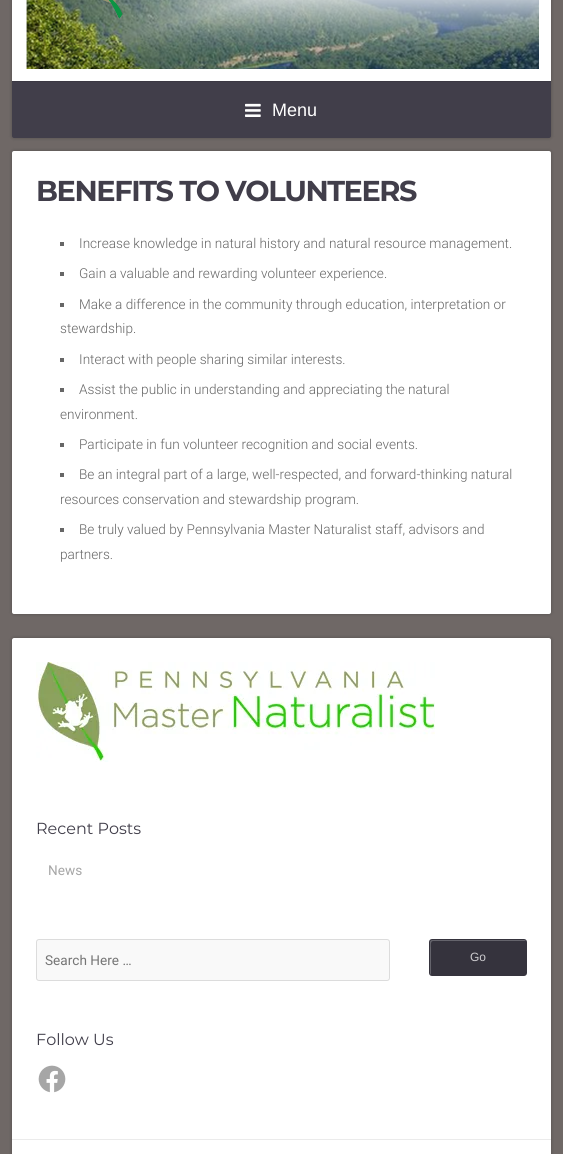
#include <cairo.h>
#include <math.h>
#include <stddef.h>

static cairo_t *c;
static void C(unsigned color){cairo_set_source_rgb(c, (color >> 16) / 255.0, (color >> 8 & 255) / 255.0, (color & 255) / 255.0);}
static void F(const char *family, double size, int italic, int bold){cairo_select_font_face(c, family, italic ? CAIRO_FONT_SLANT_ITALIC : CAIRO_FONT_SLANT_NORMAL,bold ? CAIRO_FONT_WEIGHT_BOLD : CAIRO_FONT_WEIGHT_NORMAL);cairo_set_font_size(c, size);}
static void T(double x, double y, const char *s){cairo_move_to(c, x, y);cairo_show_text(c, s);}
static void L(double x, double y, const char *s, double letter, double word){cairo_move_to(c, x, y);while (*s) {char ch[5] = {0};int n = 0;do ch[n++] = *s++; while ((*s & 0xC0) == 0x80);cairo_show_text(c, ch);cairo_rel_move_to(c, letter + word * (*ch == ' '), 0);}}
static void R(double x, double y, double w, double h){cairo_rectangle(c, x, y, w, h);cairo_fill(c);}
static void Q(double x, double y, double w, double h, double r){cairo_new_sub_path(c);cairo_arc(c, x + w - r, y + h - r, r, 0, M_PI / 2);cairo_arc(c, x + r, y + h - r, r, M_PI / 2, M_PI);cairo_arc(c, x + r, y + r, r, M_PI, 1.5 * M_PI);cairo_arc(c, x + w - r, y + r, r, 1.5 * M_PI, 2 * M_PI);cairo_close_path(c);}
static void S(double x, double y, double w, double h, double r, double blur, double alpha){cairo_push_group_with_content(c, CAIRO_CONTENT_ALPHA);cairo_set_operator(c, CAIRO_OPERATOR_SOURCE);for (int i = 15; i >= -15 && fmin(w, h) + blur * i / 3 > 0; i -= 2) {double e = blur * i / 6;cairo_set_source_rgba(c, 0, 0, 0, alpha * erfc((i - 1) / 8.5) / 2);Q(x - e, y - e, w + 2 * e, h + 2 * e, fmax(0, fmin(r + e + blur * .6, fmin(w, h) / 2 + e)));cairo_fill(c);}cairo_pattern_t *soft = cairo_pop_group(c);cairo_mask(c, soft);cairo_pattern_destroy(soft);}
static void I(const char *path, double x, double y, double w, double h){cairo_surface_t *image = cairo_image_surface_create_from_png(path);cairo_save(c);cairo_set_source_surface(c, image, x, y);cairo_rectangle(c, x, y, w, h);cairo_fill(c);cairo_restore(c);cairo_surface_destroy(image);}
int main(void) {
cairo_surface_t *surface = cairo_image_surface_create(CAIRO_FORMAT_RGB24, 563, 1154);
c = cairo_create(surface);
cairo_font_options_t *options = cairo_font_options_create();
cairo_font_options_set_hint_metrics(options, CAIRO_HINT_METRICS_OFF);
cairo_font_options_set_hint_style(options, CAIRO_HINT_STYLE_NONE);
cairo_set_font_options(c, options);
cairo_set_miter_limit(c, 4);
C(0x6f6866);
cairo_paint(c);
C(0x000000);
S(12,-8,539,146,2,2,.24);
C(0xffffff);
R(12,0,539,81);
I("1.png",26,0,513,69);
I("2.png",103,0,20,19);
C(0x413e4a);
cairo_new_path(c);
cairo_move_to(c,12,81);
cairo_line_to(c,551,81);
cairo_line_to(c,551,136);
cairo_curve_to(c,551,137,550,138,549,138);
cairo_line_to(c,14,138);
cairo_curve_to(c,13,138,12,137,12,136);
cairo_close_path(c);
cairo_fill(c);
C(0x3b3843);
R(12,81,539,1);
I("3.png",245,103,16,14);
F("Liberation Sans",18,0,0);
C(0xffffff);
T(272,116,"Menu");
C(0x000000);
S(12,151,539,463,2,2,.24);
C(0xffffff);
Q(12,151,539,463,2);
cairo_fill(c);
F("Montserrat",28.75,0,1);
C(0x413e4a);
L(36,201,"BENEFITS TO VOLUNTEERS",-1.4,0);
C(0x666666);
R(60,242,4,4);
F("Roboto Light",13.6,0,0);
T(79,248,"Increase knowledge in natural history and natural resource management.");
R(60,272,4,4);
T(79,278,"Gain a valuable and rewarding volunteer experience.");
R(60,303,4,4);
T(79,309,"Make a difference in the community through education, interpretation or");
T(60,333,"stewardship.");
R(60,358,4,4);
T(79,364,"Interact with people sharing similar interests.");
R(60,388,4,4);
T(79,394,"Assist the public in understanding and appreciating the natural");
T(60,419,"environment.");
R(60,443,4,4);
T(79,449,"Participate in fun volunteer recognition and social events.");
R(60,473,4,4);
T(79,479,"Be an integral part of a large, well-respected, and forward-thinking natural");
T(60,504,"resources conservation and stewardship program.");
R(60,528,4,4);
T(79,534,"Be truly valued by Pennsylvania Master Naturalist staff, advisors and");
T(60,559,"partners.");
C(0x000000);
S(12,638,539,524,2,2,.24);
C(0xffffff);
cairo_new_path(c);
cairo_move_to(c,14,638);
cairo_line_to(c,549,638);
cairo_curve_to(c,550,638,551,639,551,640);
cairo_line_to(c,551,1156);
cairo_line_to(c,12,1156);
cairo_line_to(c,12,640);
cairo_curve_to(c,12,639,13,638,14,638);
cairo_close_path(c);
cairo_fill(c);
C(0xebebeb);
R(12,1139,539,1);
I("4.png",36,662,399,100);
F("Montserrat",16,0,0);
C(0x413e4a);
T(36,834,"Recent Posts");
F("Roboto",13.6,0,0);
C(0xa6a6a6);
T(48,875,"News");
C(0xf9f9f9);
Q(36,939,354,42,3);
cairo_fill(c);
Q(36.5,939.5,353,41,2.5);
cairo_set_source_rgba(c,0,0,0,0.12);
cairo_set_line_width(c,1);
cairo_stroke(c);
C(0x757575);
T(45,965,"Search Here …");
C(0x35333d);
Q(429,939,98,37,3);
cairo_fill(c);
C(0x65646c);
cairo_new_path(c);
cairo_move_to(c,433,941);
cairo_line_to(c,526,941);
cairo_curve_to(c,526,941,525,940,524,940);
cairo_line_to(c,432,940);
cairo_curve_to(c,431,940,430,941,430,942);
cairo_line_to(c,430,973);
cairo_curve_to(c,430,974,431,975,431,975);
cairo_line_to(c,431,948);
cairo_curve_to(c,431,947,430,941,433,941);
cairo_close_path(c);
cairo_fill(c);
F("Liberation Sans",12,0,0);
C(0xcdcccf);
T(470,961,"Go");
F("Montserrat",16,0,0);
C(0x413e4a);
T(36,1045,"Follow Us");
I("5.png",38,1065,28,28);
cairo_surface_write_to_png(surface, "o.png");
cairo_font_options_destroy(options);
cairo_destroy(c);
cairo_surface_destroy(surface);
return 0;
}
